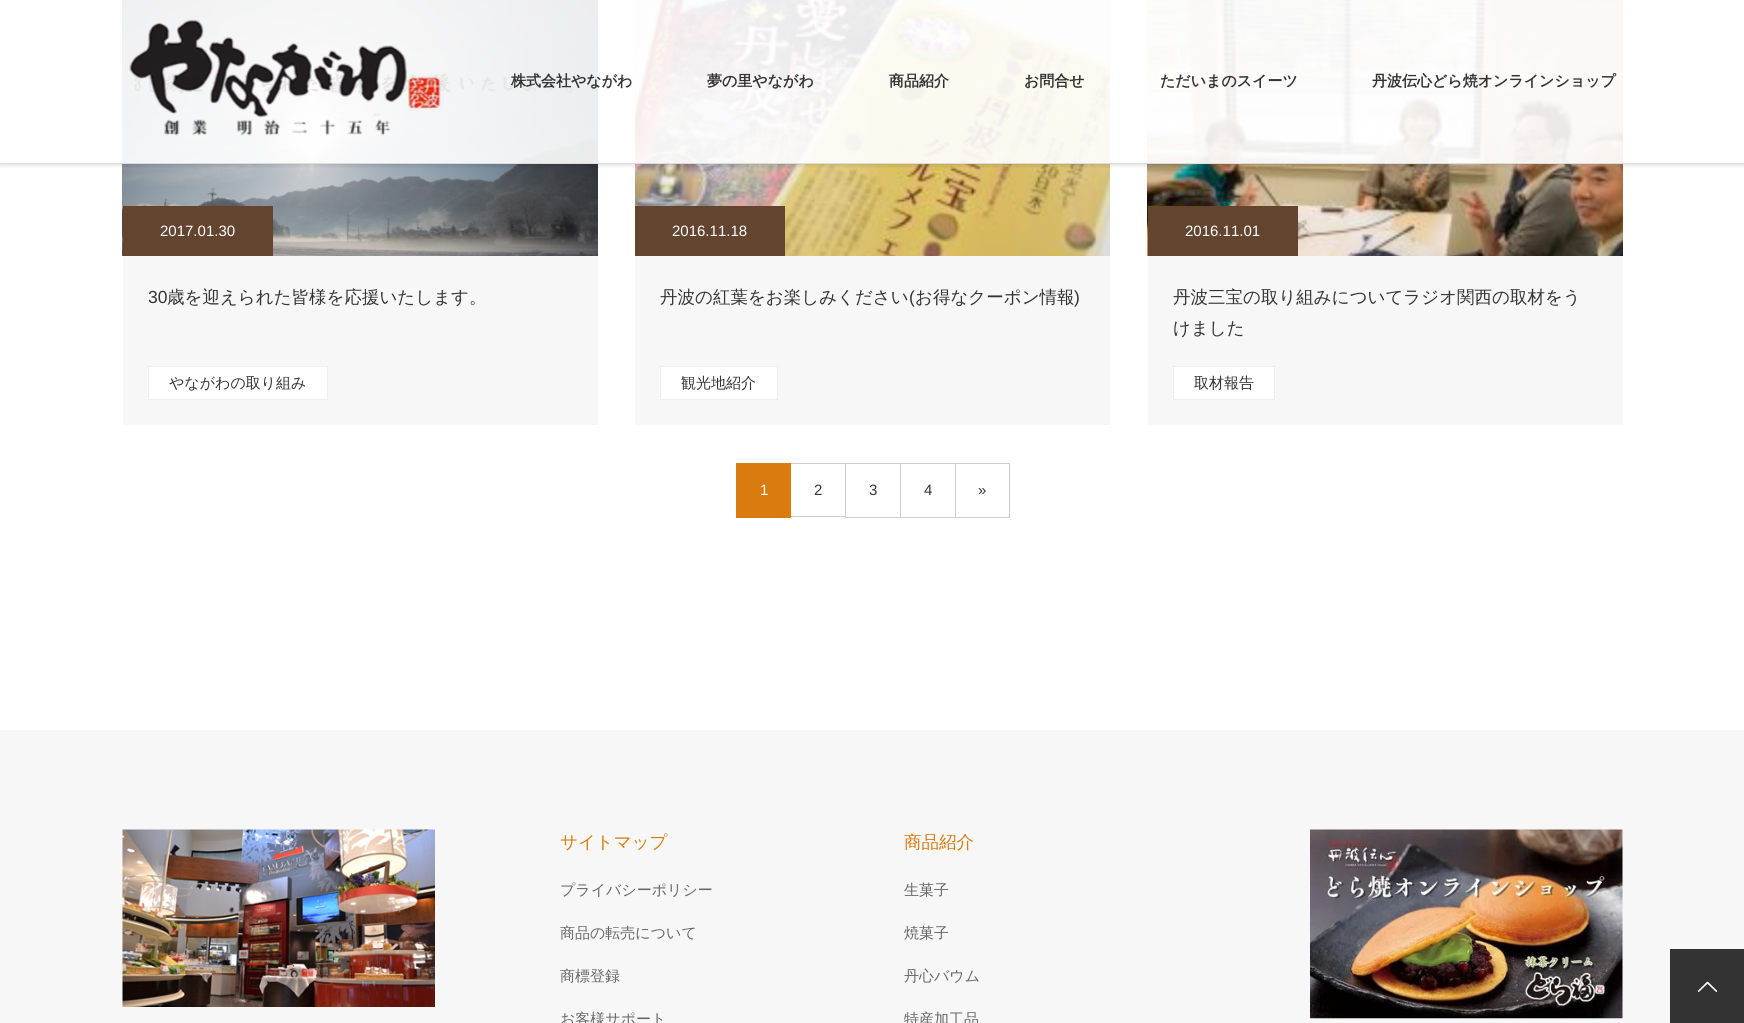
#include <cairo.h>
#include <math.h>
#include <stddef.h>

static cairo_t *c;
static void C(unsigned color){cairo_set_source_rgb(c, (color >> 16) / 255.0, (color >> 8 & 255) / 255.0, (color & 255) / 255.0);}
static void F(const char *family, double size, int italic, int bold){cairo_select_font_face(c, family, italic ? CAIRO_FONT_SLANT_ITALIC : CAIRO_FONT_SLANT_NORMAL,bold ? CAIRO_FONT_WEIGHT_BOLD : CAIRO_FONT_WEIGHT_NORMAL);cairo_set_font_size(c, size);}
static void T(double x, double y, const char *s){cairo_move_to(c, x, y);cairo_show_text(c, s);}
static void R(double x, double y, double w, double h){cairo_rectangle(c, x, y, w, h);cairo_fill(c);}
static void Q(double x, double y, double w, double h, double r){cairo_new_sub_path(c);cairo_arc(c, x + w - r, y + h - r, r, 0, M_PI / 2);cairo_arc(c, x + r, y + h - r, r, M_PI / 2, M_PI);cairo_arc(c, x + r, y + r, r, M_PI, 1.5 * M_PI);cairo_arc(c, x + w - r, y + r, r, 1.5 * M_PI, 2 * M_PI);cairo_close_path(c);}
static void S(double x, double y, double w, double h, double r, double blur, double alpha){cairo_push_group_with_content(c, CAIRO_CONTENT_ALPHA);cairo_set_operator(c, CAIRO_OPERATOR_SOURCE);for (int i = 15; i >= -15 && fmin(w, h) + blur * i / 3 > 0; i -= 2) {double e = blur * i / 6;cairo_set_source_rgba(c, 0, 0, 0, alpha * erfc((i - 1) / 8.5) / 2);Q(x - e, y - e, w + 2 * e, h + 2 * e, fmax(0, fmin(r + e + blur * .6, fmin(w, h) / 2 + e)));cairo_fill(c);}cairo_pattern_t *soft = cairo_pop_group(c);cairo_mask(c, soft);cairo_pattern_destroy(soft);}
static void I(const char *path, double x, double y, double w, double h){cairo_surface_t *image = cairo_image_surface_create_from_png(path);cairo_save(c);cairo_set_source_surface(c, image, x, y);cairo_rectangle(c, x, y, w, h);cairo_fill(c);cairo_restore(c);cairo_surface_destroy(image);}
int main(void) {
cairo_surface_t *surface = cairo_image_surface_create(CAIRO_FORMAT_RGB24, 1744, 1023);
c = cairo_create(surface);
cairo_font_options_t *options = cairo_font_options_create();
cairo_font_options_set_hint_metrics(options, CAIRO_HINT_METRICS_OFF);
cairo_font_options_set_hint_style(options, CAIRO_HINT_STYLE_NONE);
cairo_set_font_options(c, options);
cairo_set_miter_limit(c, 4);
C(0xffffff);
cairo_paint(c);
I("2.png",122,0,476,256);
I("3.png",635,0,475,256);
I("4.png",1147,0,476,256);
cairo_save(c);
cairo_rectangle(c,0,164,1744,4);
cairo_clip(c);
C(0x000000);
S(0,0,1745,164,0,3,.2);
cairo_restore(c);
cairo_set_source_rgba(c,1,1,1,0.9);
R(122,0,1501,163);
C(0xdddddd);
R(0,163,1744,1);
I("1.png",129,19,315,117);
F("WenQuanYi Zen Hei",15,0,1);
C(0x333333);
T(511,86,"株式会社やながわ");
T(707,86,"夢の里やながわ");
T(889,86,"商品紹介");
T(1024,86,"お問合せ");
T(1160,86,"ただいまのスイーツ");
T(1372,86,"丹波伝心どら焼オンラインショップ");
C(0x63442f);
R(123,206,150,50);
F("Liberation Sans",15,0,0);
C(0xffffff);
T(160,236,"2017.01.30");
C(0xf7f7f7);
R(123,256,475,169);
F("Liberation Sans",17.5,0,0);
C(0x333333);
T(148,303,"30");
F("WenQuanYi Zen Hei Medium",17.5,0,0);
T(167,303,"歳を迎えられた皆様を応援いたします。");
C(0xffffff);
cairo_rectangle(c,148.5,366.5,179,33);
cairo_fill_preserve(c);
C(0xeeeeee);
cairo_set_line_width(c,1);
cairo_stroke(c);
F("WenQuanYi Zen Hei Medium",15,0,0);
C(0x333333);
T(169,388,"やながわの取り組み");
C(0x63442f);
R(635,206,150,50);
F("Liberation Sans",15,0,0);
C(0xffffff);
T(672,236,"2016.11.18");
C(0xf7f7f7);
R(635,256,475,169);
F("WenQuanYi Zen Hei Medium",17.5,0,0);
C(0x333333);
T(660,303,"丹波の紅葉をお楽しみください");
F("Liberation Sans",17.5,0,0);
T(909,303,"(");
F("WenQuanYi Zen Hei Medium",17.5,0,0);
T(915,303,"お得なクーポン情報");
F("Liberation Sans",17.5,0,0);
T(1074,303,")");
C(0xffffff);
cairo_rectangle(c,660.5,366.5,117,33);
cairo_fill_preserve(c);
C(0xeeeeee);
cairo_stroke(c);
F("WenQuanYi Zen Hei Medium",15,0,0);
C(0x333333);
T(681,388,"観光地紹介");
C(0x63442f);
R(1148,206,150,50);
F("Liberation Sans",15,0,0);
C(0xffffff);
T(1185,236,"2016.11.01");
C(0xf7f7f7);
R(1148,256,475,169);
F("WenQuanYi Zen Hei Medium",17.5,0,0);
C(0x333333);
T(1173,303,"丹波三宝の取り組みについてラジオ関西の取材をう");
T(1173,334,"けました");
C(0xffffff);
cairo_rectangle(c,1173.5,366.5,101,33);
cairo_fill_preserve(c);
C(0xeeeeee);
cairo_stroke(c);
F("WenQuanYi Zen Hei Medium",15,0,0);
C(0x333333);
T(1194,388,"取材報告");
C(0xd97b0f);
R(736,463,54,55);
F("Liberation Sans",15,0,0);
C(0xffffff);
T(760,495,"1");
C(0xcccccc);
R(790,463,56,1);
R(790,516,56,1);
C(0xd97b0f);
R(790,463,1,55);
C(0x333333);
T(814,495,"2");
cairo_rectangle(c,845.5,463.5,55,54);
C(0xcccccc);
cairo_stroke(c);
C(0x333333);
T(869,495,"3");
cairo_rectangle(c,900.5,463.5,55,54);
C(0xcccccc);
cairo_stroke(c);
C(0x333333);
T(924,495,"4");
cairo_rectangle(c,955.5,463.5,54,54);
C(0xcccccc);
cairo_stroke(c);
C(0x333333);
T(978,495,"»");
C(0xf7f7f7);
R(0,730,1744,293);
I("5.png",122,829,313,178);
F("WenQuanYi Zen Hei Medium",17.5,0,0);
C(0xd97b0f);
T(560,848,"サイトマップ");
F("WenQuanYi Zen Hei Medium",15,0,0);
C(0x666666);
T(560,895,"プライバシーポリシー");
T(560,938,"商品の転売について");
T(560,981,"商標登録");
T(560,1024,"お客様サポート");
F("WenQuanYi Zen Hei Medium",17.5,0,0);
C(0xd97b0f);
T(904,848,"商品紹介");
F("WenQuanYi Zen Hei Medium",15,0,0);
C(0x666666);
T(904,895,"生菓子");
T(904,938,"焼菓子");
T(904,981,"丹心バウム");
T(904,1024,"特産加工品");
I("6.png",1310,829,313,190);
C(0x333333);
R(1670,949,74,74);
I("7.png",1697,981,21,11);
cairo_surface_write_to_png(surface, "o.png");
cairo_font_options_destroy(options);
cairo_destroy(c);
cairo_surface_destroy(surface);
return 0;
}
